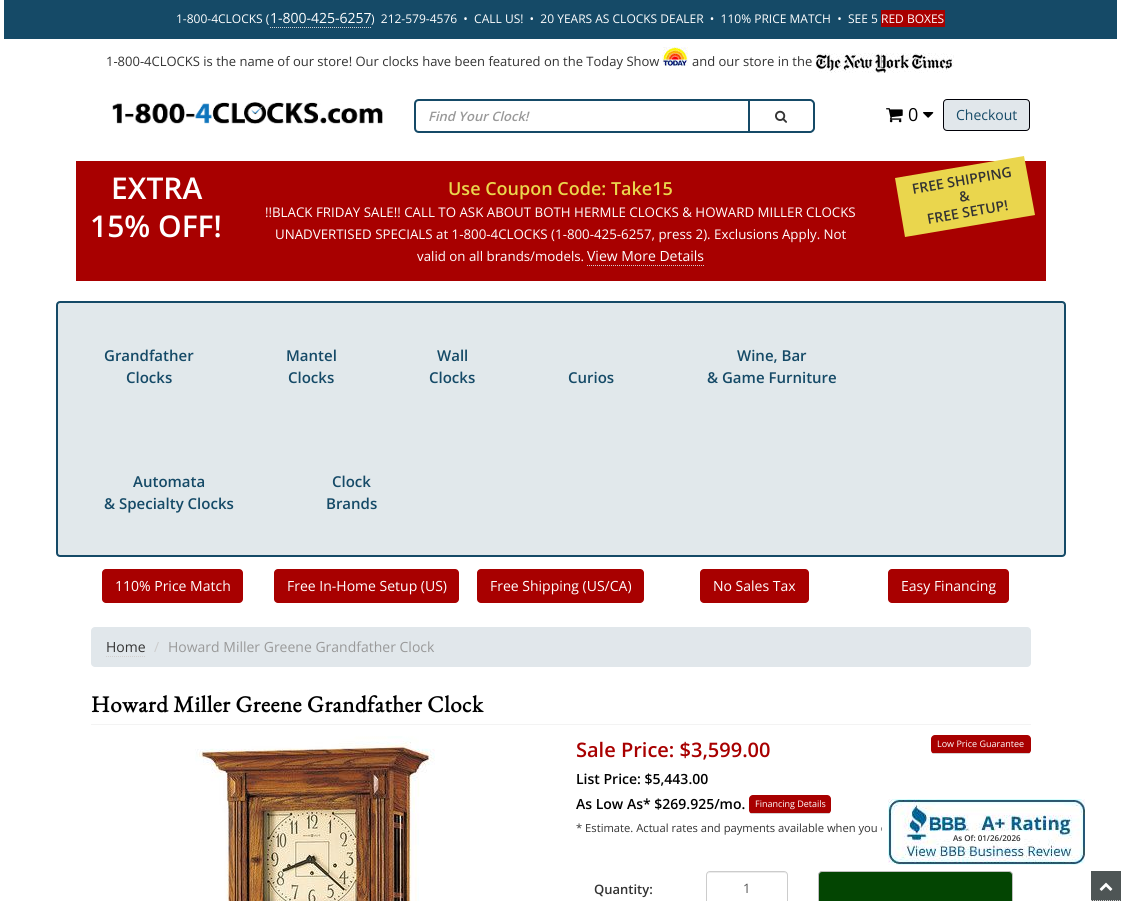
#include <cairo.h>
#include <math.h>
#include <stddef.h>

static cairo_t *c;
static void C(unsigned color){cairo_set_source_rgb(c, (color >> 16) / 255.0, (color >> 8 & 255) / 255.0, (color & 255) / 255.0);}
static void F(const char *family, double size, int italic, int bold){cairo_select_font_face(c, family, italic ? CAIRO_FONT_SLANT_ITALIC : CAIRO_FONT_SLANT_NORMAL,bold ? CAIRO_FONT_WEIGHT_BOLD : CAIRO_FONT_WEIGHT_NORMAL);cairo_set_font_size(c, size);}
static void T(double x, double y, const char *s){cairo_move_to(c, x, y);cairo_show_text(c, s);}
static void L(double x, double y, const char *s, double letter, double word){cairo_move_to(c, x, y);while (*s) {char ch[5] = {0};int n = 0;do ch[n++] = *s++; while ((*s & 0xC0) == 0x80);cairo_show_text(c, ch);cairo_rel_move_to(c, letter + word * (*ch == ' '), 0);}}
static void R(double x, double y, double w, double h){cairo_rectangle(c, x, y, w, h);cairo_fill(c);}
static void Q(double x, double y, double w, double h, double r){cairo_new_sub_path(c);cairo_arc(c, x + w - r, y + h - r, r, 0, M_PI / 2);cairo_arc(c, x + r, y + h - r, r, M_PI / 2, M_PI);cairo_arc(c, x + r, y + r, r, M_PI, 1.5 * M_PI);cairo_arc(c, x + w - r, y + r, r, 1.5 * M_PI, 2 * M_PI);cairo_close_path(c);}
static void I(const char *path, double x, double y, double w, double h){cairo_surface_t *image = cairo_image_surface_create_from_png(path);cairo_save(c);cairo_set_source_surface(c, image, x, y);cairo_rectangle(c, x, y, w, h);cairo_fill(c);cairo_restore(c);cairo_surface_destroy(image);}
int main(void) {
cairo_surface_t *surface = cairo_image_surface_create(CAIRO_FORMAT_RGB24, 1121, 901);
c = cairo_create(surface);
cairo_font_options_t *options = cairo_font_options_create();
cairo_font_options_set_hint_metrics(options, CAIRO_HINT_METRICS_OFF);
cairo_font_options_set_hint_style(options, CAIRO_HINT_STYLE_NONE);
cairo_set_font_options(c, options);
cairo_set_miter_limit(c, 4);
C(0xffffff);
cairo_paint(c);
C(0x154a67);
R(4,0,1113,39);
F("Open Sans",12,0,0);
C(0xffffff);
T(176,23,"1-800-4CLOCKS (");
F("Open Sans",14,0,0);
T(270,23,"1-800-425-6257");
cairo_new_path(c);
cairo_move_to(c,270,27.5);
cairo_line_to(c,371,27.5);
C(0xd2d0d0);
cairo_set_line_width(c,1);
cairo_set_dash(c,(double[]){1,1},2,0);
cairo_stroke(c);
F("Open Sans",12,0,0);
C(0xffffff);
T(371,23,")  212-579-4576  •  CALL US!  •  20 YEARS AS CLOCKS DEALER  •  110% PRICE MATCH  •  SEE 5");
C(0xa80000);
R(881,10,64,17);
C(0xffffff);
T(881,23,"RED BOXES");
F("Open Sans",13,0,0);
C(0x333333);
T(106,66,"1-800-4CLOCKS is the name of our store! Our clocks have been featured on the Today Show");
I("1.png",662,47,26,19);
T(692,66,"and our store in the");
I("2.png",815,53,139,20);
I("3.png",112,102,271,22);
C(0x154a67);
cairo_set_fill_rule(c,CAIRO_FILL_RULE_EVEN_ODD);
cairo_new_path(c);
cairo_move_to(c,419,99);
cairo_line_to(c,748,99);
cairo_line_to(c,748,133);
cairo_line_to(c,419,133);
cairo_curve_to(c,416,133,414,131,414,128);
cairo_line_to(c,414,104);
cairo_curve_to(c,414,101,416,99,419,99);
cairo_close_path(c);
cairo_move_to(c,419,101);
cairo_line_to(c,748,101);
cairo_line_to(c,748,131);
cairo_line_to(c,419,131);
cairo_curve_to(c,417,131,416,130,416,128);
cairo_line_to(c,416,104);
cairo_curve_to(c,416,102,417,101,419,101);
cairo_close_path(c);
cairo_fill(c);
F("Open Sans SemiBold",13,1,0);
C(0x999999);
T(428,121,"Find Your Clock!");
cairo_new_path(c);
cairo_move_to(c,749,100);
cairo_line_to(c,810,100);
cairo_curve_to(c,812,100,814,102,814,104);
cairo_line_to(c,814,128);
cairo_curve_to(c,814,130,812,132,810,132);
cairo_line_to(c,749,132);
cairo_close_path(c);
C(0x154a67);
cairo_set_line_width(c,2);
cairo_set_dash(c,NULL,0,0);
cairo_stroke(c);
I("4.png",775,110,12,13);
I("5.png",886,108,17,15);
F("Open Sans",18,0,0);
C(0x000000);
T(908,121,"0");
I("6.png",923,112,11,6);
C(0xe1e7eb);
Q(943.5,99.5,86,31,3.5);
cairo_fill_preserve(c);
C(0x000007);
cairo_set_line_width(c,1);
cairo_stroke(c);
F("Open Sans",14,0,0);
C(0x154a67);
T(956,120,"Checkout");
C(0xa80000);
R(76,161,970,120);
F("Open Sans SemiBold",30,0,0);
C(0xffffff);
T(111,199,"EXTRA");
T(90,237,"15% OFF!");
F("Open Sans SemiBold",18,0,0);
C(0xead64d);
T(448,195,"Use Coupon Code: Take15");
F("Open Sans",13.3,0,0);
C(0xffffff);
T(265,217,"!!BLACK FRIDAY SALE!! CALL TO ASK ABOUT BOTH HERMLE CLOCKS & HOWARD MILLER CLOCKS");
T(275,239,"UNADVERTISED SPECIALS at 1-800-4CLOCKS (1-800-425-6257, press 2). Exclusions Apply. Not");
T(417,261,"valid on all brands/models.");
F("Open Sans",14,0,0);
T(587,261,"View More Details");
cairo_new_path(c);
cairo_move_to(c,587,265.5);
cairo_line_to(c,704,265.5);
C(0xd2d0d0);
cairo_set_dash(c,(double[]){1,1},2,0);
cairo_stroke(c);
C(0xead64d);
cairo_set_fill_rule(c,CAIRO_FILL_RULE_WINDING);
cairo_new_path(c);
cairo_move_to(c,895,178);
cairo_line_to(c,1024,156);
cairo_line_to(c,1035,215);
cairo_line_to(c,905,237);
cairo_close_path(c);
cairo_fill(c);
F("Open Sans SemiBold",14,0,0);
C(0x333333);
cairo_save(c);
cairo_translate(c,913,194);
cairo_rotate(c,-10 * M_PI / 180);
T(0,0,"FREE SHIPPING");
cairo_restore(c);
cairo_save(c);
cairo_translate(c,960,202);
cairo_rotate(c,-10 * M_PI / 180);
T(0,0,"&");
cairo_restore(c);
cairo_save(c);
cairo_translate(c,928,224);
cairo_rotate(c,-10 * M_PI / 180);
T(0,0,"FREE SETUP!");
cairo_restore(c);
C(0xe1e8eb);
Q(57,302,1008,254,3);
cairo_fill_preserve(c);
C(0x154a67);
cairo_set_line_width(c,2);
cairo_set_dash(c,NULL,0,0);
cairo_stroke(c);
F("Open Sans SemiBold",15,0,0);
T(104,361,"Grandfather");
T(126,383,"Clocks");
T(286,361,"Mantel");
T(288,383,"Clocks");
T(437,361,"Wall");
T(429,383,"Clocks");
T(568,383,"Curios");
T(737,361,"Wine, Bar");
T(707,383,"& Game Furniture");
T(133,487,"Automata");
T(104,509,"& Specialty Clocks");
T(332,487,"Clock");
T(326,509,"Brands");
C(0xa80000);
Q(102,569,141,34,4);
cairo_fill(c);
F("Open Sans",14,0,0);
C(0xffffff);
T(115,591,"110% Price Match");
C(0xa80000);
Q(274,569,185,34,4);
cairo_fill(c);
C(0xffffff);
T(287,591,"Free In-Home Setup (US)");
C(0xa80000);
Q(477,569,167,34,4);
cairo_fill(c);
C(0xffffff);
T(490,591,"Free Shipping (US/CA)");
C(0xa80000);
Q(700,569,109,34,4);
cairo_fill(c);
C(0xffffff);
T(713,591,"No Sales Tax");
C(0xa80000);
Q(888,569,121,34,4);
cairo_fill(c);
C(0xffffff);
T(901,591,"Easy Financing");
C(0xe1e7eb);
Q(91,627,940,40,4);
cairo_fill(c);
C(0x333333);
T(106,652,"Home");
cairo_new_path(c);
cairo_move_to(c,106,656.5);
cairo_line_to(c,145,656.5);
C(0xd2d0d0);
cairo_set_line_width(c,1);
cairo_set_dash(c,(double[]){1,1},2,0);
cairo_stroke(c);
C(0xcccccc);
T(154,652,"/");
C(0x999999);
T(168,652,"Howard Miller Greene Grandfather Clock");
C(0xf3f3f3);
R(91,724,940,1);
F("EB Garamond",23,0,1);
C(0x000000);
L(91,712,"Howard Miller Greene Grandfather Clock",.5,0);
I("7.png",195,736,240,165);
F("Open Sans SemiBold",20,0,0);
C(0xa80000);
T(576,757,"Sale Price: $3,599.00");
Q(931,735,100,19,4);
cairo_fill(c);
C(0xd2d0d0);
R(933,753,96,1);
F("Open Sans",9,0,0);
C(0xffffff);
T(937,747,"Low Price Guarantee");
F("Open Sans SemiBold",14,0,0);
C(0x000000);
T(576,784,"List Price: $5,443.00");
T(576,809,"As Low As* $269.925/mo.");
C(0xa80000);
Q(749,795,82,19,4);
cairo_fill(c);
C(0xd2d0d0);
R(751,813,78,1);
F("Open Sans",9,0,0);
C(0xffffff);
T(755,807,"Financing Details");
F("Open Sans",11.2,0,0);
C(0x333333);
T(576,832,"* Estimate. Actual rates and payments available when you c");
F("Open Sans SemiBold",13,0,0);
T(594,894,"Quantity:");
C(0xececec);
cairo_new_path(c);
cairo_move_to(c,710,873);
cairo_line_to(c,784,873);
cairo_curve_to(c,786,873,787,874,787,876);
cairo_curve_to(c,787,869,776,872,772,872);
cairo_line_to(c,722,872);
cairo_curve_to(c,718,872,707,869,707,876);
cairo_curve_to(c,707,874,708,873,710,873);
cairo_close_path(c);
cairo_fill(c);
Q(706.5,871.5,81,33,3.5);
C(0xcccccc);
cairo_set_dash(c,NULL,0,0);
cairo_stroke(c);
F("Open Sans",13,0,0);
C(0x555555);
T(743,893,"1");
C(0x034502);
Q(818.5,871.5,194,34,3.5);
cairo_fill_preserve(c);
C(0xc0c0c0);
cairo_stroke(c);
C(0xffffff);
Q(882,793,209,78,12);
cairo_fill(c);
I("8.png",888,799,197,66);
F("Open Sans SemiBold",8,0,0);
C(0x333333);
T(953,841,"As Of: 01/26/2026");
C(0x4e5555);
R(1091,871,30,30);
cairo_new_path(c);
cairo_move_to(c,1091,900.5);
cairo_line_to(c,1121,900.5);
C(0xd2d0d0);
cairo_set_dash(c,(double[]){1,1},2,0);
cairo_stroke(c);
I("9.png",1099,882,14,9);
cairo_surface_write_to_png(surface, "o.png");
cairo_font_options_destroy(options);
cairo_destroy(c);
cairo_surface_destroy(surface);
return 0;
}
